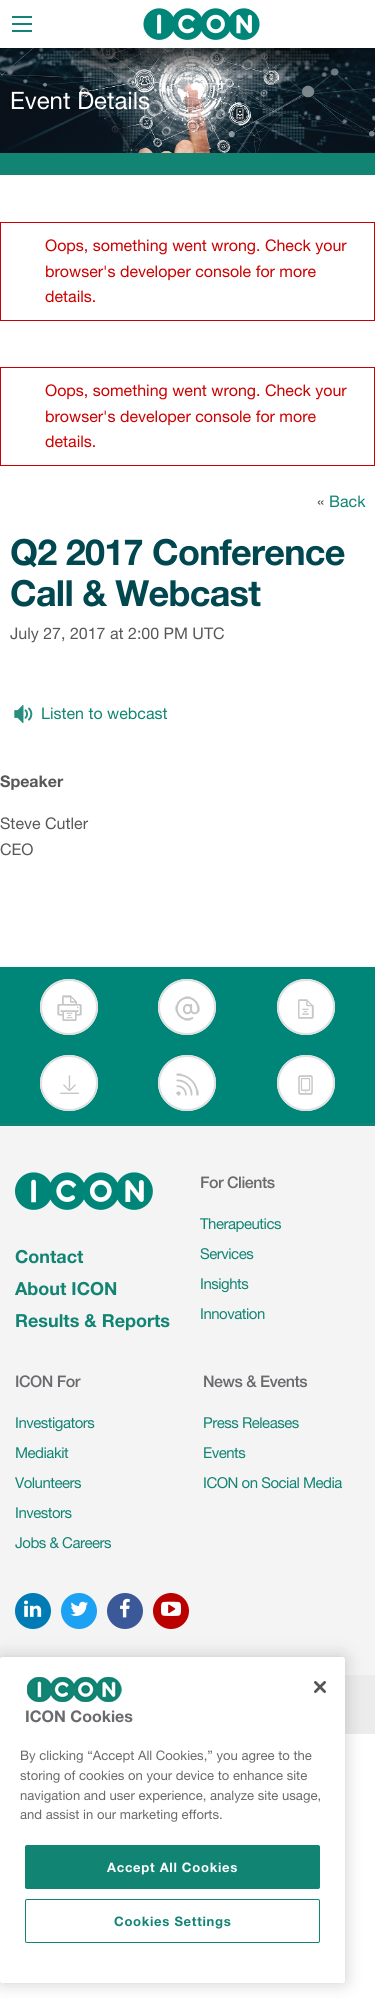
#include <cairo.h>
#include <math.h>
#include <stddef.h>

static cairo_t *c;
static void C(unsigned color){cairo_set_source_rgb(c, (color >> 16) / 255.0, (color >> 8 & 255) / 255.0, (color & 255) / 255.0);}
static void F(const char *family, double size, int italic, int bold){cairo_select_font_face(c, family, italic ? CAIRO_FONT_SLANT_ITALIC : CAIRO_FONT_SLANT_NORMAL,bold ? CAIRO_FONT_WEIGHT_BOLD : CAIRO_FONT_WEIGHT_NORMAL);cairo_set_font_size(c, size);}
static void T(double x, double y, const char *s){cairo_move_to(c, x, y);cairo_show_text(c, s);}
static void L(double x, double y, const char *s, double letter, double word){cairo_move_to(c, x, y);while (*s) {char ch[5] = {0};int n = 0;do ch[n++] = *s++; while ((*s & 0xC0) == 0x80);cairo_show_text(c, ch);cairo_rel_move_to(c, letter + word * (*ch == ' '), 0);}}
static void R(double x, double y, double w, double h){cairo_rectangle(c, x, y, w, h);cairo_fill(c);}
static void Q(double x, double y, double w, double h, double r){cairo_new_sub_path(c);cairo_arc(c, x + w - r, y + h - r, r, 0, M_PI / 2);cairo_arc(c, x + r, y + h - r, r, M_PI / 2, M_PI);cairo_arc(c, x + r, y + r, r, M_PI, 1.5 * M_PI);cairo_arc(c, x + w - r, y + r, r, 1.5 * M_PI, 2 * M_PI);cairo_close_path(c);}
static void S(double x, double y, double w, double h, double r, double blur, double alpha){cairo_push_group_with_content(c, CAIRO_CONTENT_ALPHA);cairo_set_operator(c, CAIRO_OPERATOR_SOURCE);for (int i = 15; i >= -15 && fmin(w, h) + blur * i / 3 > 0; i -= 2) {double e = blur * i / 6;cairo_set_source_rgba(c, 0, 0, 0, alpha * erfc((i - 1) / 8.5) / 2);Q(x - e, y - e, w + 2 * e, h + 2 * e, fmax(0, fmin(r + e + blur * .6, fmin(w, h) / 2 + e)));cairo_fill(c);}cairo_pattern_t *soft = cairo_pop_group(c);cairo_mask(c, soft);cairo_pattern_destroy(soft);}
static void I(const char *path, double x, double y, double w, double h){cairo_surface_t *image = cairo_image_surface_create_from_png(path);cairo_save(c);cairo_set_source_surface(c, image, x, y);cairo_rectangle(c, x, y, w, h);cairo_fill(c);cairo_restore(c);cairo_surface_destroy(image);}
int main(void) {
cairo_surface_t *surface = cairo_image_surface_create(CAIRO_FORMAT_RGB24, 375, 1999);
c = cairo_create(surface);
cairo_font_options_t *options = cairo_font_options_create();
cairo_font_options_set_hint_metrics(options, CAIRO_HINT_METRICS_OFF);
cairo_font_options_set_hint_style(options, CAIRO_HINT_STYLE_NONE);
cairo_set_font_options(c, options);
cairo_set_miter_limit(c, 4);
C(0xffffff);
cairo_paint(c);
C(0x128474);
R(12,30,20,2);
R(12,23,20,2);
R(12,16,20,2);
I("1.png",143,8,117,32);
I("2.png",0,48,375,105);
F("Helvetica Neue",24,0,0);
C(0xffffff);
T(10,109,"Event Details");
C(0x128474);
R(0,153,375,22);
cairo_rectangle(c,.5,222.5,374,98);
C(0xcc0000);
cairo_set_line_width(c,1);
cairo_stroke(c);
F("Helvetica Neue",16,0,0);
T(45,251,"Oops, something went wrong. Check your");
T(45,277,"browser's developer console for more");
T(45,302,"details.");
cairo_rectangle(c,.5,367.5,374,98);
cairo_stroke(c);
T(45,396,"Oops, something went wrong. Check your");
T(45,422,"browser's developer console for more");
T(45,447,"details.");
C(0x575756);
T(317,507,"«");
C(0x128474);
T(329,507,"Back");
F("Helvetica Neue",36,0,1);
C(0x004750);
L(10,565,"Q2 2017 Conference",-.75,0);
L(10,606,"Call & Webcast",-.75,0);
F("Helvetica Neue",16,0,0);
C(0x575756);
T(10,639,"July 27, 2017 at 2:00 PM UTC");
I("3.png",14,705,19,19);
C(0x128474);
T(41,719,"Listen to webcast");
F("Helvetica Neue",16,0,1);
C(0x575756);
T(0,787,"Speaker");
F("Helvetica Neue",16,0,0);
T(0,829,"Steve Cutler");
T(0,855,"CEO");
C(0x008579);
R(0,967,375,156);
C(0xffffff);
cairo_new_path(c);
cairo_move_to(c,69,979);
cairo_curve_to(c,85,979,98,991.5,98,1007);
cairo_curve_to(c,98,1022.5,85,1035,69,1035);
cairo_curve_to(c,53,1035,40,1022.5,40,1007);
cairo_curve_to(c,40,991.5,53,979,69,979);
cairo_close_path(c);
cairo_fill(c);
cairo_new_path(c);
cairo_move_to(c,69,980);
cairo_curve_to(c,84.5,980,97,992,97,1007);
cairo_curve_to(c,97,1022,84.5,1034,69,1034);
cairo_curve_to(c,53.5,1034,41,1022,41,1007);
cairo_curve_to(c,41,992,53.5,980,69,980);
cairo_close_path(c);
C(0xe0e0e0);
cairo_set_line_width(c,2);
cairo_stroke(c);
I("4.png",57,995,25,26);
C(0xffffff);
cairo_new_path(c);
cairo_move_to(c,187,979);
cairo_curve_to(c,203,979,216,991.5,216,1007);
cairo_curve_to(c,216,1022.5,203,1035,187,1035);
cairo_curve_to(c,171,1035,158,1022.5,158,1007);
cairo_curve_to(c,158,991.5,171,979,187,979);
cairo_close_path(c);
cairo_fill(c);
cairo_new_path(c);
cairo_move_to(c,187,980);
cairo_curve_to(c,202.5,980,215,992,215,1007);
cairo_curve_to(c,215,1022,202.5,1034,187,1034);
cairo_curve_to(c,171.5,1034,159,1022,159,1007);
cairo_curve_to(c,159,992,171.5,980,187,980);
cairo_close_path(c);
C(0xe0e0e0);
cairo_stroke(c);
I("5.png",175,996,25,25);
C(0xffffff);
cairo_new_path(c);
cairo_move_to(c,306,979);
cairo_curve_to(c,322,979,335,991.5,335,1007);
cairo_curve_to(c,335,1022.5,322,1035,306,1035);
cairo_curve_to(c,290,1035,277,1022.5,277,1007);
cairo_curve_to(c,277,991.5,290,979,306,979);
cairo_close_path(c);
cairo_fill(c);
cairo_new_path(c);
cairo_move_to(c,306,980);
cairo_curve_to(c,321.5,980,334,992,334,1007);
cairo_curve_to(c,334,1022,321.5,1034,306,1034);
cairo_curve_to(c,290.5,1034,278,1022,278,1007);
cairo_curve_to(c,278,992,290.5,980,306,980);
cairo_close_path(c);
C(0xe0e0e0);
cairo_stroke(c);
I("6.png",298,999,16,20);
C(0xffffff);
cairo_new_path(c);
cairo_move_to(c,69,1055);
cairo_curve_to(c,85,1055,98,1067.5,98,1083);
cairo_curve_to(c,98,1098.5,85,1111,69,1111);
cairo_curve_to(c,53,1111,40,1098.5,40,1083);
cairo_curve_to(c,40,1067.5,53,1055,69,1055);
cairo_close_path(c);
cairo_fill(c);
cairo_new_path(c);
cairo_move_to(c,69,1056);
cairo_curve_to(c,84.5,1056,97,1068,97,1083);
cairo_curve_to(c,97,1098,84.5,1110,69,1110);
cairo_curve_to(c,53.5,1110,41,1098,41,1083);
cairo_curve_to(c,41,1068,53.5,1056,69,1056);
cairo_close_path(c);
C(0xe0e0e0);
cairo_stroke(c);
I("7.png",60,1075,19,19);
C(0xffffff);
cairo_new_path(c);
cairo_move_to(c,187,1055);
cairo_curve_to(c,203,1055,216,1067.5,216,1083);
cairo_curve_to(c,216,1098.5,203,1111,187,1111);
cairo_curve_to(c,171,1111,158,1098.5,158,1083);
cairo_curve_to(c,158,1067.5,171,1055,187,1055);
cairo_close_path(c);
cairo_fill(c);
cairo_new_path(c);
cairo_move_to(c,187,1056);
cairo_curve_to(c,202.5,1056,215,1068,215,1083);
cairo_curve_to(c,215,1098,202.5,1110,187,1110);
cairo_curve_to(c,171.5,1110,159,1098,159,1083);
cairo_curve_to(c,159,1068,171.5,1056,187,1056);
cairo_close_path(c);
C(0xe0e0e0);
cairo_stroke(c);
I("8.png",176,1073,23,23);
C(0xffffff);
cairo_new_path(c);
cairo_move_to(c,306,1055);
cairo_curve_to(c,322,1055,335,1067.5,335,1083);
cairo_curve_to(c,335,1098.5,322,1111,306,1111);
cairo_curve_to(c,290,1111,277,1098.5,277,1083);
cairo_curve_to(c,277,1067.5,290,1055,306,1055);
cairo_close_path(c);
cairo_fill(c);
cairo_new_path(c);
cairo_move_to(c,306,1056);
cairo_curve_to(c,321.5,1056,334,1068,334,1083);
cairo_curve_to(c,334,1098,321.5,1110,306,1110);
cairo_curve_to(c,290.5,1110,278,1098,278,1083);
cairo_curve_to(c,278,1068,290.5,1056,306,1056);
cairo_close_path(c);
C(0xe0e0e0);
cairo_stroke(c);
I("9.png",298,1075,15,20);
C(0xf4f4f4);
R(0,1126,375,549);
C(0x128474);
R(0,1123,375,3);
I("10.png",15,1172,138,38);
F("Helvetica Neue",18,0,1);
T(15,1263,"Contact");
T(15,1295,"About ICON");
T(15,1327,"Results & Reports");
F("Helvetica Neue Medium",16,0,0);
C(0x6a696d);
L(200,1188,"For Clients",-.5,0);
F("Helvetica Neue",15,0,0);
C(0x128474);
L(200,1229,"Therapeutics",-.5,0);
L(200,1259,"Services",-.5,0);
L(200,1289,"Insights",-.5,0);
L(200,1319,"Innovation",-.5,0);
F("Helvetica Neue Medium",16,0,0);
C(0x6a696d);
L(15,1387,"ICON For",-.5,0);
F("Helvetica Neue",15,0,0);
C(0x128474);
L(15,1428,"Investigators",-.5,0);
L(15,1458,"Mediakit",-.5,0);
L(15,1488,"Volunteers",-.5,0);
L(15,1518,"Investors",-.5,0);
L(15,1548,"Jobs & Careers",-.5,0);
F("Helvetica Neue Medium",16,0,0);
C(0x6a696d);
L(203,1387,"News & Events",-.5,0);
F("Helvetica Neue",15,0,0);
C(0x128474);
L(203,1428,"Press Releases",-.5,0);
L(203,1458,"Events",-.5,0);
L(203,1488,"ICON on Social Media",-.5,0);
C(0x007bb5);
cairo_new_path(c);
cairo_arc(c,33,1611,18,0,2 * M_PI);
cairo_fill(c);
I("11.png",24,1600,18,17);
C(0x1da1f2);
cairo_arc(c,79,1611,18,0,2 * M_PI);
cairo_fill(c);
I("12.png",70,1601,18,15);
C(0x3b5998);
cairo_arc(c,125,1611,18,0,2 * M_PI);
cairo_fill(c);
I("13.png",120,1598,10,20);
C(0xbb0000);
cairo_arc(c,171,1611,18,0,2 * M_PI);
cairo_fill(c);
I("14.png",161,1601,20,15);
C(0xececec);
R(345,1675,30,59);
C(0x000000);
S(0,1657,345,326,2.5,9,.2);
C(0xffffff);
Q(0,1657,345,326,2.5);
cairo_fill(c);
I("15.png",314,1681,12,12);
I("16.png",27,1677,95,25);
F("Helvetica Neue",16,0,1);
C(0x6a696d);
T(25,1722,"ICON Cookies");
F("Helvetica Neue",13.1,0,0);
T(20,1760,"By clicking “Accept All Cookies,” you agree to the");
T(20,1780,"storing of cookies on your device to enhance site");
T(20,1800,"navigation and user experience, analyze site usage,");
T(20,1819,"and assist in our marketing efforts.");
C(0x128474);
Q(25.5,1845.5,294,43,1.5);
cairo_fill_preserve(c);
cairo_set_line_width(c,1);
cairo_stroke(c);
F("Helvetica Neue",13.1,0,1);
C(0xffffff);
L(107,1872,"Accept All Cookies",.7,0);
Q(25.5,1899.5,294,43,1.5);
C(0x128474);
cairo_stroke(c);
L(114,1926,"Cookies Settings",.7,0);
cairo_surface_write_to_png(surface, "o.png");
cairo_font_options_destroy(options);
cairo_destroy(c);
cairo_surface_destroy(surface);
return 0;
}
